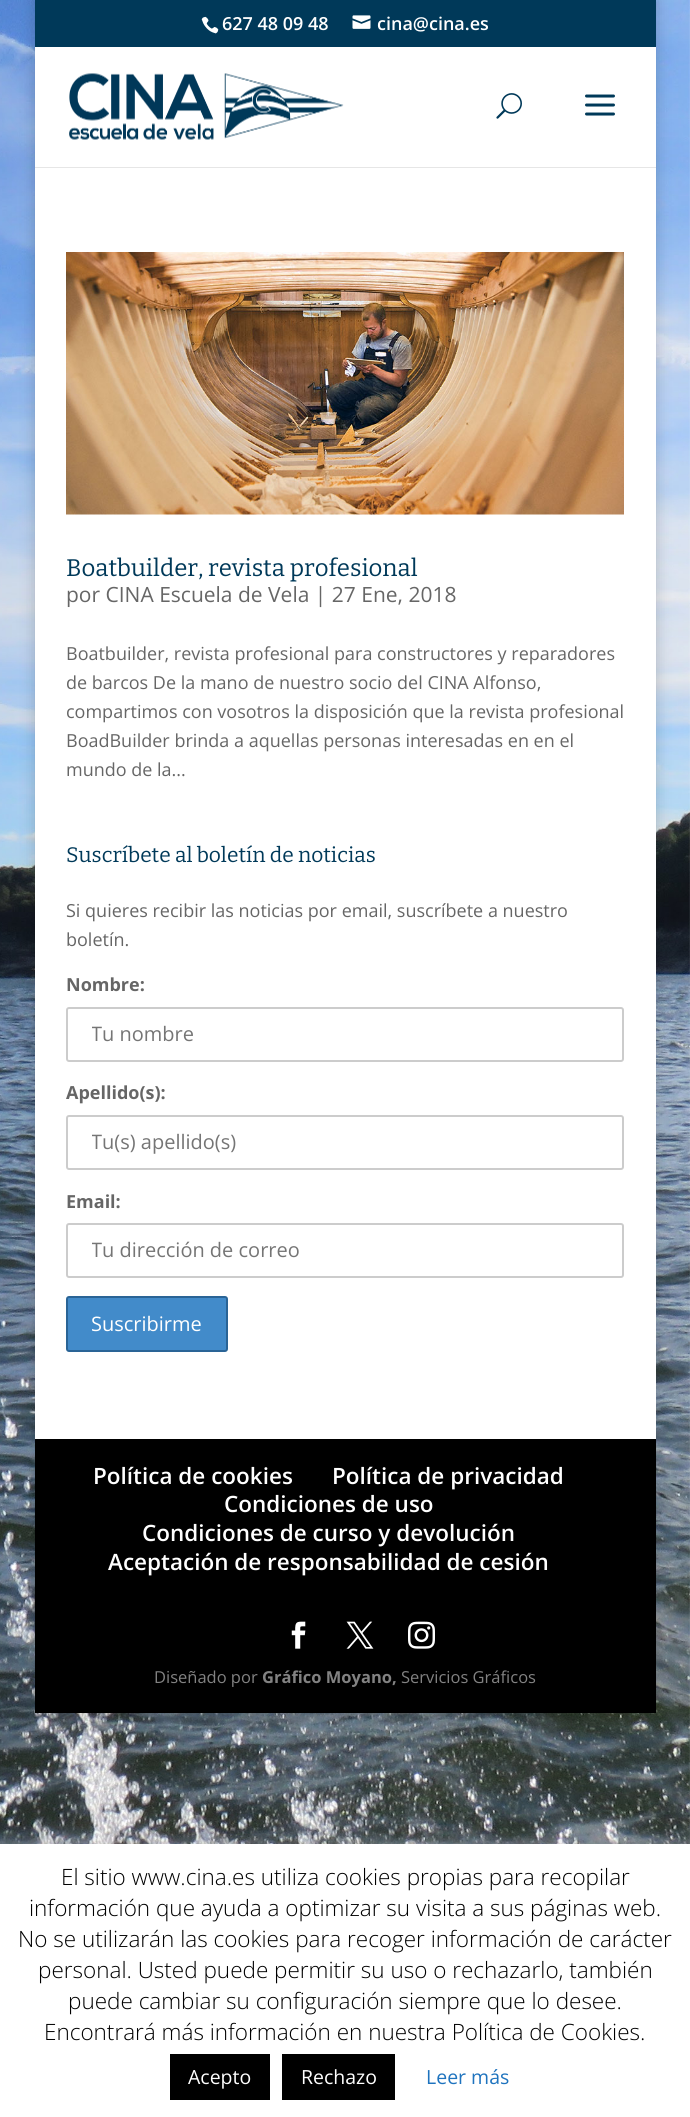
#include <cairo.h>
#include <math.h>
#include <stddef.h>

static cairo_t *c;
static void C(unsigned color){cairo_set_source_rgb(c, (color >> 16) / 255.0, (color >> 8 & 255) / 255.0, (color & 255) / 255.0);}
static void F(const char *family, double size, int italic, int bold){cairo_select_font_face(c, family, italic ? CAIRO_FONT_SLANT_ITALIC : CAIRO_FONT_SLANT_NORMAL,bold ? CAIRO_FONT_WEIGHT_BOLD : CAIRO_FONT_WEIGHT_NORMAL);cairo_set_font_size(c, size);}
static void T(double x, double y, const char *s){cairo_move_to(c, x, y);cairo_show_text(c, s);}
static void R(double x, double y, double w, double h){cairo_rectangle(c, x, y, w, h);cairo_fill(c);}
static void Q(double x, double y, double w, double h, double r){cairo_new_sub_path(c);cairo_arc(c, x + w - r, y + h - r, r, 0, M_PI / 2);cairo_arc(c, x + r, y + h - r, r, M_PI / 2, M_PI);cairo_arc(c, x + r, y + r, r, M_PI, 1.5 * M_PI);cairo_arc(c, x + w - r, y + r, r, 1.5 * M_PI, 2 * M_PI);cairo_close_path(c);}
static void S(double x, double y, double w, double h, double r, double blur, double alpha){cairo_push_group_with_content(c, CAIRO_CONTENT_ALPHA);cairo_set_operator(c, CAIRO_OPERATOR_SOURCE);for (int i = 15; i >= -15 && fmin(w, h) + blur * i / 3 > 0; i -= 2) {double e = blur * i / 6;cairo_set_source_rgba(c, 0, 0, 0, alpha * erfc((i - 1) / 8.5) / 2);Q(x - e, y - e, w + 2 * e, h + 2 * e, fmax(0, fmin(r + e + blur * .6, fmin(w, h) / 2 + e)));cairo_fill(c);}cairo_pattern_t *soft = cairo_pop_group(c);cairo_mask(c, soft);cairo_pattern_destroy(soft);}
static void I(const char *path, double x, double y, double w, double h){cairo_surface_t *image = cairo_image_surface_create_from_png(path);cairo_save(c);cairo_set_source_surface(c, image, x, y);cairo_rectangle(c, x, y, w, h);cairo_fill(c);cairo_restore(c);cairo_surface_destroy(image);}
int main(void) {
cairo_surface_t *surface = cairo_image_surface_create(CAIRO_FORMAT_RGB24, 690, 2117);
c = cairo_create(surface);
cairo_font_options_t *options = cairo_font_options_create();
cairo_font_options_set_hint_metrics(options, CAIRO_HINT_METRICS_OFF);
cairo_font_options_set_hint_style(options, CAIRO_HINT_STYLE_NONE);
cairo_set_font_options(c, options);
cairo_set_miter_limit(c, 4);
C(0xffffff);
cairo_paint(c);
I("1.png",0,0,690,1844);
C(0x000000);
S(35,0,621,1713,0,7.5,.2);
C(0x003959);
R(35,0,621,47);
I("2.png",201,16,18,18);
F("Open Sans SemiBold",18,0,0);
C(0xffffff);
T(222,30,"627 48 09 48");
I("3.png",352,15,19,14);
T(377,30,"cina@cina.es");
C(0xe6e6e6);
cairo_new_path(c);
cairo_move_to(c,35,166);
cairo_line_to(c,35,168);
cairo_line_to(c,656,168);
cairo_line_to(c,656,48);
cairo_line_to(c,656,166);
cairo_close_path(c);
cairo_fill(c);
C(0xffffff);
R(35,47,621,120);
I("4.png",69,73,275,67);
I("5.png",496,93,26,26);
I("6.png",585,94,30,22);
R(35,168,621,1271);
I("7.png",66,252,558,263);
F("Bitter Thin",24,0,0);
C(0x003959);
T(66,576,"Boatbuilder, revista profesional");
F("Open Sans",21,0,0);
C(0x666666);
T(66,602,"por CINA Escuela de Vela | 27 Ene, 2018");
F("Open Sans",18,0,0);
T(66,660,"Boatbuilder, revista profesional para constructores y reparadores");
T(66,689,"de barcos De la mano de nuestro socio del CINA Alfonso,");
T(66,718,"compartimos con vosotros la disposición que la revista profesional");
T(66,747,"BoadBuilder brinda a aquellas personas interesadas en en el");
T(66,776,"mundo de la...");
F("Bitter Thin",21,0,0);
C(0x003959);
T(66,862,"Suscríbete al boletín de noticias");
F("Open Sans",18,0,0);
C(0x666666);
T(66,917,"Si quieres recibir las noticias por email, suscríbete a nuestro");
T(66,946,"boletín.");
F("Open Sans",18,0,1);
T(66,991,"Nombre:");
Q(67,1008,556,53,2);
C(0xcccccc);
cairo_stroke(c);
cairo_save(c);
cairo_rectangle(c,92,1020,507,27);
cairo_clip(c);
F("Open Sans",20,0,0);
C(0x757575);
T(91,1041,"Tu nombre");
cairo_restore(c);
C(0x666666);
T(66,1099,"Apellido(s):");
Q(67,1116,556,53,2);
C(0xcccccc);
cairo_stroke(c);
cairo_save(c);
cairo_rectangle(c,92,1128,507,27);
cairo_clip(c);
F("Open Sans",20,0,0);
C(0x757575);
T(91,1149,"Tu(s) apellido(s)");
cairo_restore(c);
C(0x666666);
T(66,1208,"Email:");
Q(67,1224,556,53,2);
C(0xcccccc);
cairo_stroke(c);
cairo_save(c);
cairo_rectangle(c,92,1236,507,27);
cairo_clip(c);
F("Open Sans",20,0,0);
C(0x757575);
T(91,1257,"Tu dirección de correo");
cairo_restore(c);
C(0x428bca);
Q(67,1297,160,54,2);
cairo_fill_preserve(c);
C(0x2a6496);
cairo_stroke(c);
F("Open Sans",20,0,0);
C(0xffffff);
T(91,1331,"Suscribirme");
C(0x000000);
R(35,1439,621,274);
F("Open Sans SemiBold",22.5,0,0);
C(0xffffff);
T(93,1484,"Política de cookies");
T(332,1484,"Política de privacidad");
T(224,1512,"Condiciones de uso");
T(142,1541,"Condiciones de curso y devolución");
T(108,1570,"Aceptación de responsabilidad de cesión");
I("8.png",291,1621,15,28);
I("9.png",346,1621,28,28);
I("10.png",408,1621,27,28);
F("Open Sans",16.5,0,0);
C(0x828282);
T(154,1683,"Diseñado por");
F("Open Sans",16.5,0,1);
T(262,1683,"Gráfico Moyano,");
F("Open Sans",16.5,0,0);
T(401,1683,"Servicios Gráficos");
C(0xacabab);
S(0,1842,690,275,0,7.5,.3);
C(0xffffff);
R(0,1844,690,273);
F("Open Sans Light",22.5,0,0);
C(0x000000);
T(61,1885,"El sitio www.cina.es utiliza cookies propias para recopilar");
T(29,1916,"información que ayuda a optimizar su visita a sus páginas web.");
T(18,1947,"No se utilizarán las cookies para recoger información de carácter");
T(38,1978,"personal. Usted puede permitir su uso o rechazarlo, también");
T(68,2009,"puede cambiar su configuración siempre que lo desee.");
T(44,2040,"Encontrará más información en nuestra Política de Cookies.");
R(170,2054,100,46);
F("Open Sans",19.5,0,0);
C(0xffffff);
T(188,2084,"Acepto");
C(0x000000);
R(282,2054,113,46);
C(0xffffff);
T(301,2084,"Rechazo");
C(0x1e73be);
T(426,2084,"Leer más");
cairo_surface_write_to_png(surface, "o.png");
cairo_font_options_destroy(options);
cairo_destroy(c);
cairo_surface_destroy(surface);
return 0;
}
